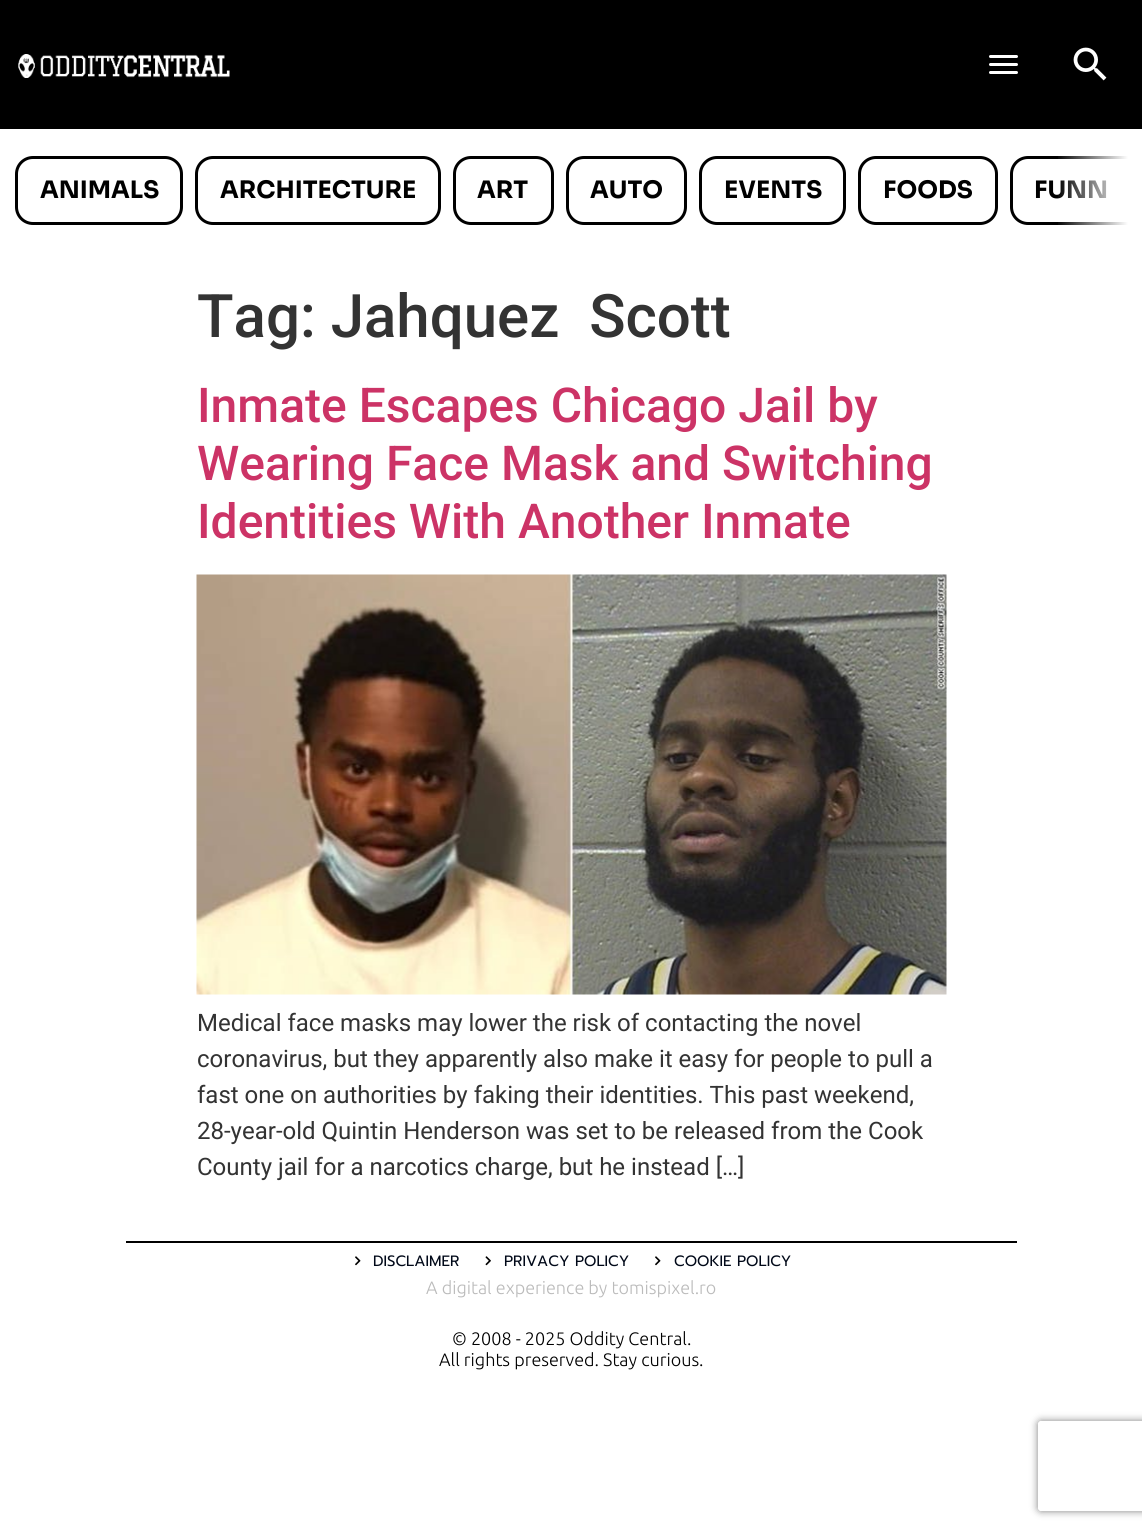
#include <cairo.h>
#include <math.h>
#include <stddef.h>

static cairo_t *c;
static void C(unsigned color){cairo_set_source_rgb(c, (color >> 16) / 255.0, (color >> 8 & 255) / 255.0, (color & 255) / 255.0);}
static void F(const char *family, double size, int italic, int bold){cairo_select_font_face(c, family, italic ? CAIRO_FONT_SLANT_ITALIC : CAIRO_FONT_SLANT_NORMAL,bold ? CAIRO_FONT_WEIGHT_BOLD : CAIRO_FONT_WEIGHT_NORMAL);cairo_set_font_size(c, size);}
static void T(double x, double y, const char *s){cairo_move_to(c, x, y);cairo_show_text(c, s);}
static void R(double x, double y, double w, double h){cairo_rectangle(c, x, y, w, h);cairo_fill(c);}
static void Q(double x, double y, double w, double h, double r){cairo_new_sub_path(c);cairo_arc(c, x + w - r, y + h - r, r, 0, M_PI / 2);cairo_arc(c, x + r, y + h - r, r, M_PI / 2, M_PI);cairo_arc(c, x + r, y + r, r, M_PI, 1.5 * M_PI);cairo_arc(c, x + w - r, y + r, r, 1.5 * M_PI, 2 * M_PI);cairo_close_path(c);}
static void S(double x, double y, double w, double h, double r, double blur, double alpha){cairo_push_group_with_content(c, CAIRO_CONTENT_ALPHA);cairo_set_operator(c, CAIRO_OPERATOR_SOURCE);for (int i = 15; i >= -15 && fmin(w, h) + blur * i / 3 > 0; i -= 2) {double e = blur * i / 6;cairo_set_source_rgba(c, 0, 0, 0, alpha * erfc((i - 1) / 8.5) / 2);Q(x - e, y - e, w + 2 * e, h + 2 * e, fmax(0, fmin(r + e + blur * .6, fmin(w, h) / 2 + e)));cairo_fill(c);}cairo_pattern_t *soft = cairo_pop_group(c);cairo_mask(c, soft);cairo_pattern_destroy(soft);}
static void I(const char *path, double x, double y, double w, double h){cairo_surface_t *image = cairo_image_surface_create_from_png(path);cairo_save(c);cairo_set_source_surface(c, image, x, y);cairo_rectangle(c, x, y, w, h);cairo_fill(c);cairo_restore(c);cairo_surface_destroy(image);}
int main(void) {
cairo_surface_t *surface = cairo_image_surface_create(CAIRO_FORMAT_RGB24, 1142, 1531);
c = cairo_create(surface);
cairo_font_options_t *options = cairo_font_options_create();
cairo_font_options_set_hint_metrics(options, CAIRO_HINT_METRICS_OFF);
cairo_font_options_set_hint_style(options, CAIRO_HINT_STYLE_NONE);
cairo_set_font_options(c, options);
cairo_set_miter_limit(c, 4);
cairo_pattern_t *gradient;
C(0xffffff);
cairo_paint(c);
C(0x000000);
R(0,0,1142,129);
I("1.png",18,54,212,24);
C(0xffffff);
Q(989,55,29,3,1.5);
cairo_fill(c);
Q(989,63,29,3,1.5);
cairo_fill(c);
Q(989,71,29,3,1.5);
cairo_fill(c);
I("2.png",1073,47,34,34);
cairo_save(c);
cairo_rectangle(c,15,150,1113,81);
cairo_clip(c);
Q(1011.5,157.5,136,66,16.5);
C(0x000000);
cairo_set_line_width(c,3);
cairo_stroke(c);
cairo_restore(c);
F("Sora",24,0,1);
C(0x000000);
T(1034,198,"FUNN");
gradient = cairo_pattern_create_linear(1128,190,1056,190);
cairo_pattern_add_color_stop_rgba(gradient,0,1,1,1,1);
cairo_pattern_add_color_stop_rgba(gradient,1,1,1,1,0);
cairo_set_source(c,gradient);
cairo_pattern_destroy(gradient);
R(1058,156,70,69);
Q(16.5,157.5,165,66,16.5);
C(0x000000);
cairo_set_line_width(c,3);
cairo_stroke(c);
T(40,198,"ANIMALS");
Q(196.5,157.5,243,66,16.5);
cairo_stroke(c);
T(220,198,"ARCHITECTURE");
Q(454.5,157.5,98,66,16.5);
cairo_stroke(c);
T(477,198,"ART");
Q(567.5,157.5,118,66,16.5);
cairo_stroke(c);
T(590,198,"AUTO");
Q(700.5,157.5,144,66,16.5);
cairo_stroke(c);
T(724,198,"EVENTS");
Q(859.5,157.5,137,66,16.5);
cairo_stroke(c);
T(883,198,"FOODS");
F("Roboto Medium",60,0,0);
C(0x333333);
T(197,337,"Tag: Jahquez  Scott");
F("Roboto Medium",48,0,0);
C(0xcc3366);
T(197,422,"Inmate Escapes Chicago Jail by");
T(197,480,"Wearing Face Mask and Switching");
T(197,538,"Identities With Another Inmate");
I("3.png",196,574,751,421);
F("Roboto",24,0,0);
C(0x333333);
T(197,1031,"Medical face masks may lower the risk of contacting the novel");
T(197,1067,"coronavirus, but they apparently also make it easy for people to pull a");
T(197,1103,"fast one on authorities by faking their identities. This past weekend,");
T(197,1139,"28-year-old Quintin Henderson was set to be released from the Cook");
T(197,1175,"County jail for a narcotics charge, but he instead […]");
C(0x000000);
R(126,1241,891,2);
I("4.png",355,1256,6,10);
F("Prompt",15,0,0);
C(0x000818);
T(373,1266,"DISCLAIMER");
I("5.png",485,1256,6,10);
T(504,1266,"PRIVACY POLICY");
I("4.png",655,1256,6,10);
T(674,1266,"COOKIE POLICY");
F("Ubuntu Light",18,0,0);
C(0xbbbbbb);
T(426,1294,"A digital experience by tomispixel.ro");
C(0x000000);
T(452,1345,"© 2008 - 2025 Oddity Central.");
T(439,1366,"All rights preserved. Stay curious.");
cairo_save(c);
cairo_set_fill_rule(c,CAIRO_FILL_RULE_EVEN_ODD);
cairo_new_path(c);
cairo_move_to(c,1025,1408);
cairo_line_to(c,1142,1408);
cairo_line_to(c,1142,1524);
cairo_line_to(c,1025,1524);
cairo_close_path(c);
cairo_move_to(c,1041,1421);
cairo_line_to(c,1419,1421);
cairo_curve_to(c,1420.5,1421,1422,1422.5,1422,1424);
cairo_line_to(c,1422,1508);
cairo_curve_to(c,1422,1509.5,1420.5,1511,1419,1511);
cairo_line_to(c,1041,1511);
cairo_curve_to(c,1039.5,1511,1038,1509.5,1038,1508);
cairo_line_to(c,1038,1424);
cairo_curve_to(c,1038,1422.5,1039.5,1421,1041,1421);
cairo_close_path(c);
cairo_clip(c);
C(0x808080);
S(1038,1421,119,90,3,4,1);
cairo_restore(c);
cairo_surface_write_to_png(surface, "o.png");
cairo_font_options_destroy(options);
cairo_destroy(c);
cairo_surface_destroy(surface);
return 0;
}
